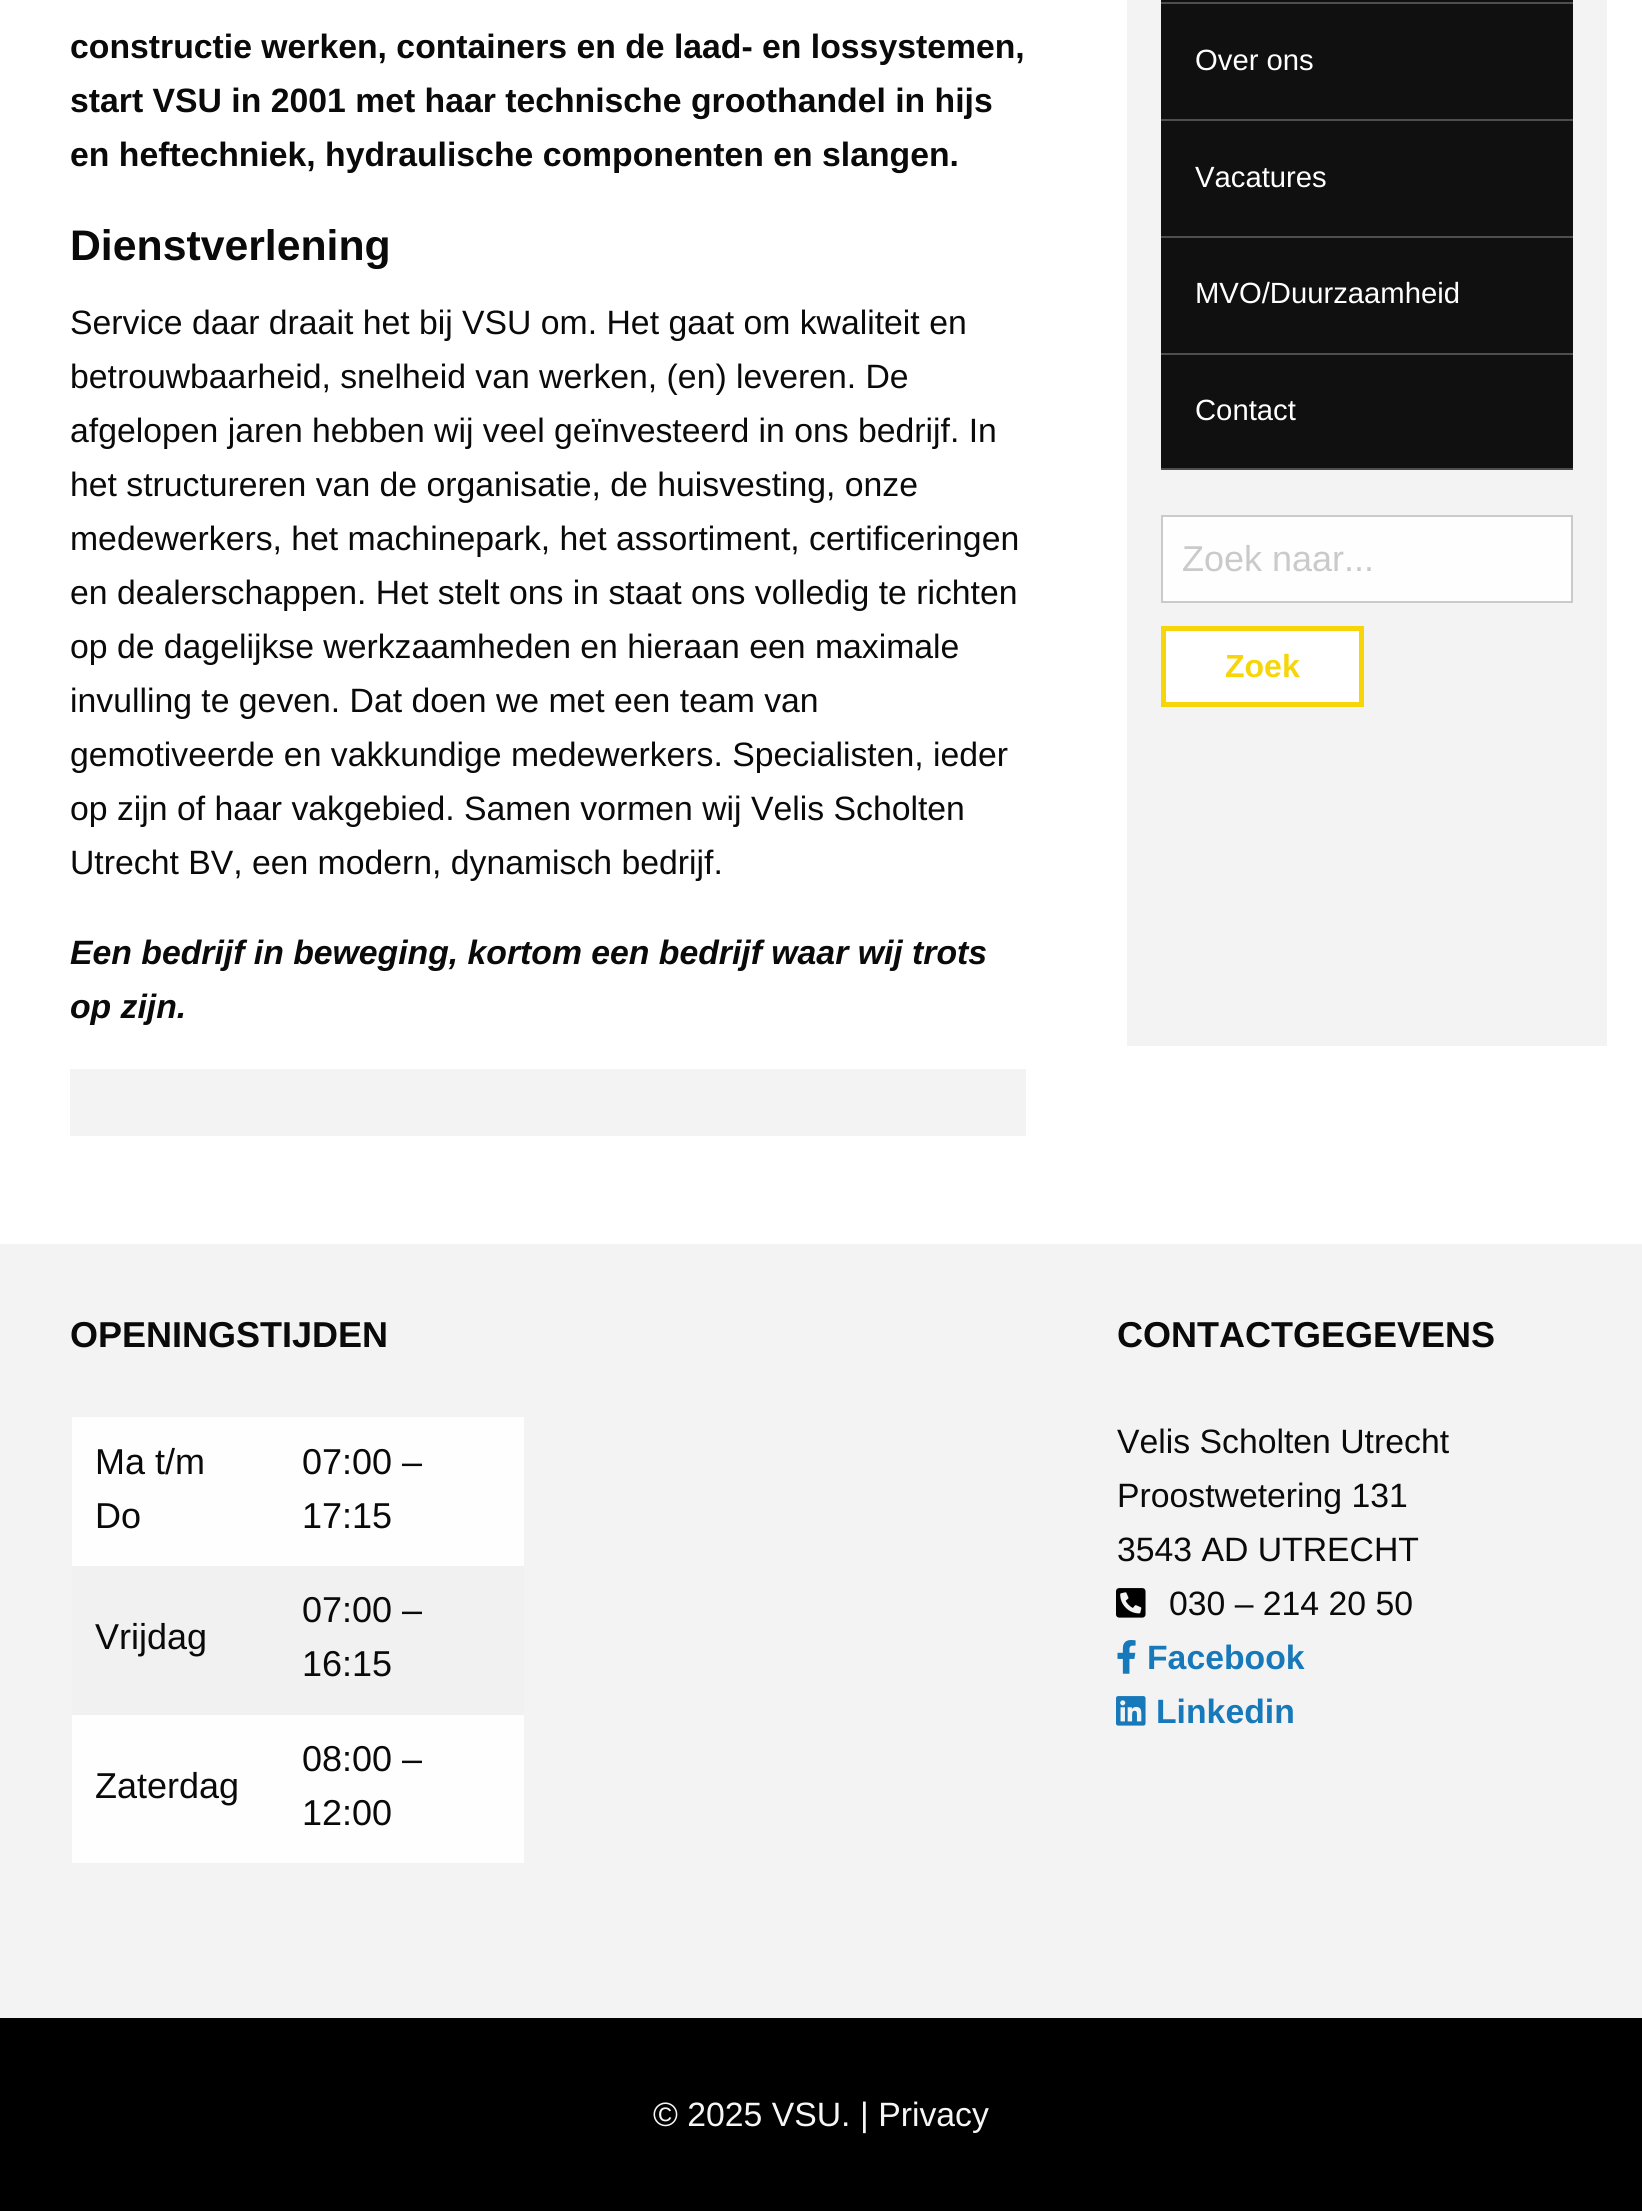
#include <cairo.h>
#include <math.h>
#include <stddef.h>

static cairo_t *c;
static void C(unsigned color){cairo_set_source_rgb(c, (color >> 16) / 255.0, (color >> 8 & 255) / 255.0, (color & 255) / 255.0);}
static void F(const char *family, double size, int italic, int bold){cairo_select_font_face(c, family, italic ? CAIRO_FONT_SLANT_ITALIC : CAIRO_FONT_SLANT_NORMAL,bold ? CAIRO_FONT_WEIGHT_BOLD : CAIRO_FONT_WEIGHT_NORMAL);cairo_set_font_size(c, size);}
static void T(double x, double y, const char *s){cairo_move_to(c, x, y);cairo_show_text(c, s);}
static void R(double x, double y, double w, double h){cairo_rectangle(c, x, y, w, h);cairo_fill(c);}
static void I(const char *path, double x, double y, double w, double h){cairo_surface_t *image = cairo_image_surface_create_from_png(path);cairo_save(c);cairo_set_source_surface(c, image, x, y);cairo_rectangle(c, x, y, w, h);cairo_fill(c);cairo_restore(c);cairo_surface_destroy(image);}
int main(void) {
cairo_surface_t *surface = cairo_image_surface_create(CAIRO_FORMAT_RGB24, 1642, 2211);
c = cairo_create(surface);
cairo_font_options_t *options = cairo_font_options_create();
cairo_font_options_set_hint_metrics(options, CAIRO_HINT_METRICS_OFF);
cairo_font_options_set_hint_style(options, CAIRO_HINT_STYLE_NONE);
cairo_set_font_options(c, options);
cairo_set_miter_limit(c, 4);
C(0xffffff);
cairo_paint(c);
F("Liberation Sans",33.75,0,1);
C(0x0a0a0a);
T(70,58,"constructie werken, containers en de laad- en lossystemen,");
T(70,112,"start VSU in 2001 met haar technische groothandel in hijs");
T(70,166,"en heftechniek, hydraulische componenten en slangen.");
F("Liberation Sans",42.75,0,1);
T(70,260,"Dienstverlening");
F("Liberation Sans",33.75,0,0);
T(70,334,"Service daar draait het bij VSU om. Het gaat om kwaliteit en");
T(70,388,"betrouwbaarheid, snelheid van werken, (en) leveren. De");
T(70,442,"afgelopen jaren hebben wij veel geïnvesteerd in ons bedrijf. In");
T(70,496,"het structureren van de organisatie, de huisvesting, onze");
T(70,550,"medewerkers, het machinepark, het assortiment, certificeringen");
T(70,604,"en dealerschappen. Het stelt ons in staat ons volledig te richten");
T(70,658,"op de dagelijkse werkzaamheden en hieraan een maximale");
T(70,712,"invulling te geven. Dat doen we met een team van");
T(70,766,"gemotiveerde en vakkundige medewerkers. Specialisten, ieder");
T(70,820,"op zijn of haar vakgebied. Samen vormen wij Velis Scholten");
T(70,874,"Utrecht BV, een modern, dynamisch bedrijf.");
F("Liberation Sans",33.75,1,1);
T(70,964,"Een bedrijf in beweging, kortom een bedrijf waar wij trots");
T(70,1018,"op zijn.");
C(0xf3f3f3);
R(70,1069,956,67);
R(1127,0,480,1046);
C(0x101010);
R(1161,0,412,468);
C(0x504d4d);
R(1161,2,412,2);
R(1161,119,412,2);
F("Liberation Sans",29.25,0,0);
C(0xffffff);
T(1195,70,"Over ons");
C(0x504d4d);
R(1161,236,412,2);
C(0xffffff);
T(1195,187,"Vacatures");
C(0x504d4d);
R(1161,353,412,2);
C(0xffffff);
T(1195,303,"MVO/Duurzaamheid");
C(0x504d4d);
R(1161,468,412,2);
C(0xffffff);
T(1195,420,"Contact");
C(0xfefefe);
cairo_rectangle(c,1162,516,410,86);
cairo_fill_preserve(c);
C(0xcacaca);
cairo_stroke(c);
F("Liberation Sans",36,0,0);
T(1182,571,"Zoek naar...");
C(0xffffff);
cairo_rectangle(c,1163.5,628.5,198,76);
cairo_fill_preserve(c);
C(0xf6d50a);
cairo_set_line_width(c,5);
cairo_stroke(c);
F("Liberation Sans",32,0,1);
T(1225,677,"Zoek");
C(0xf3f3f3);
R(0,1244,1642,774);
F("Liberation Sans",36,0,1);
C(0x0a0a0a);
T(70,1347,"OPENINGSTIJDEN");
C(0xfefefe);
R(72,1417,452,446);
F("Liberation Sans",36,0,0);
C(0x0a0a0a);
T(95,1474,"Ma t/m");
T(95,1528,"Do");
T(302,1474,"07:00 –");
T(302,1528,"17:15");
C(0xf1f1f1);
R(72,1566,452,149);
C(0x0a0a0a);
T(95,1649,"Vrijdag");
T(302,1622,"07:00 –");
T(302,1676,"16:15");
T(95,1798,"Zaterdag");
T(302,1771,"08:00 –");
T(302,1825,"12:00");
F("Liberation Sans",36,0,1);
T(1117,1347,"CONTACTGEGEVENS");
F("Liberation Sans",33.75,0,0);
T(1117,1453,"Velis Scholten Utrecht");
T(1117,1507,"Proostwetering 131");
T(1117,1561,"3543 AD UTRECHT");
I("1.png",1116,1588,30,30);
T(1169,1615,"030 – 214 20 50");
I("2.png",1117,1640,19,34);
F("Liberation Sans",33.75,0,1);
C(0x1779ba);
T(1147,1669,"Facebook");
I("3.png",1116,1696,30,30);
T(1156,1723,"Linkedin");
C(0x000000);
R(0,2018,1642,193);
F("Liberation Sans",33.75,0,0);
C(0xf6f6f6);
T(653,2126,"© 2025 VSU.");
T(860,2126,"| Privacy");
cairo_surface_write_to_png(surface, "o.png");
cairo_font_options_destroy(options);
cairo_destroy(c);
cairo_surface_destroy(surface);
return 0;
}
